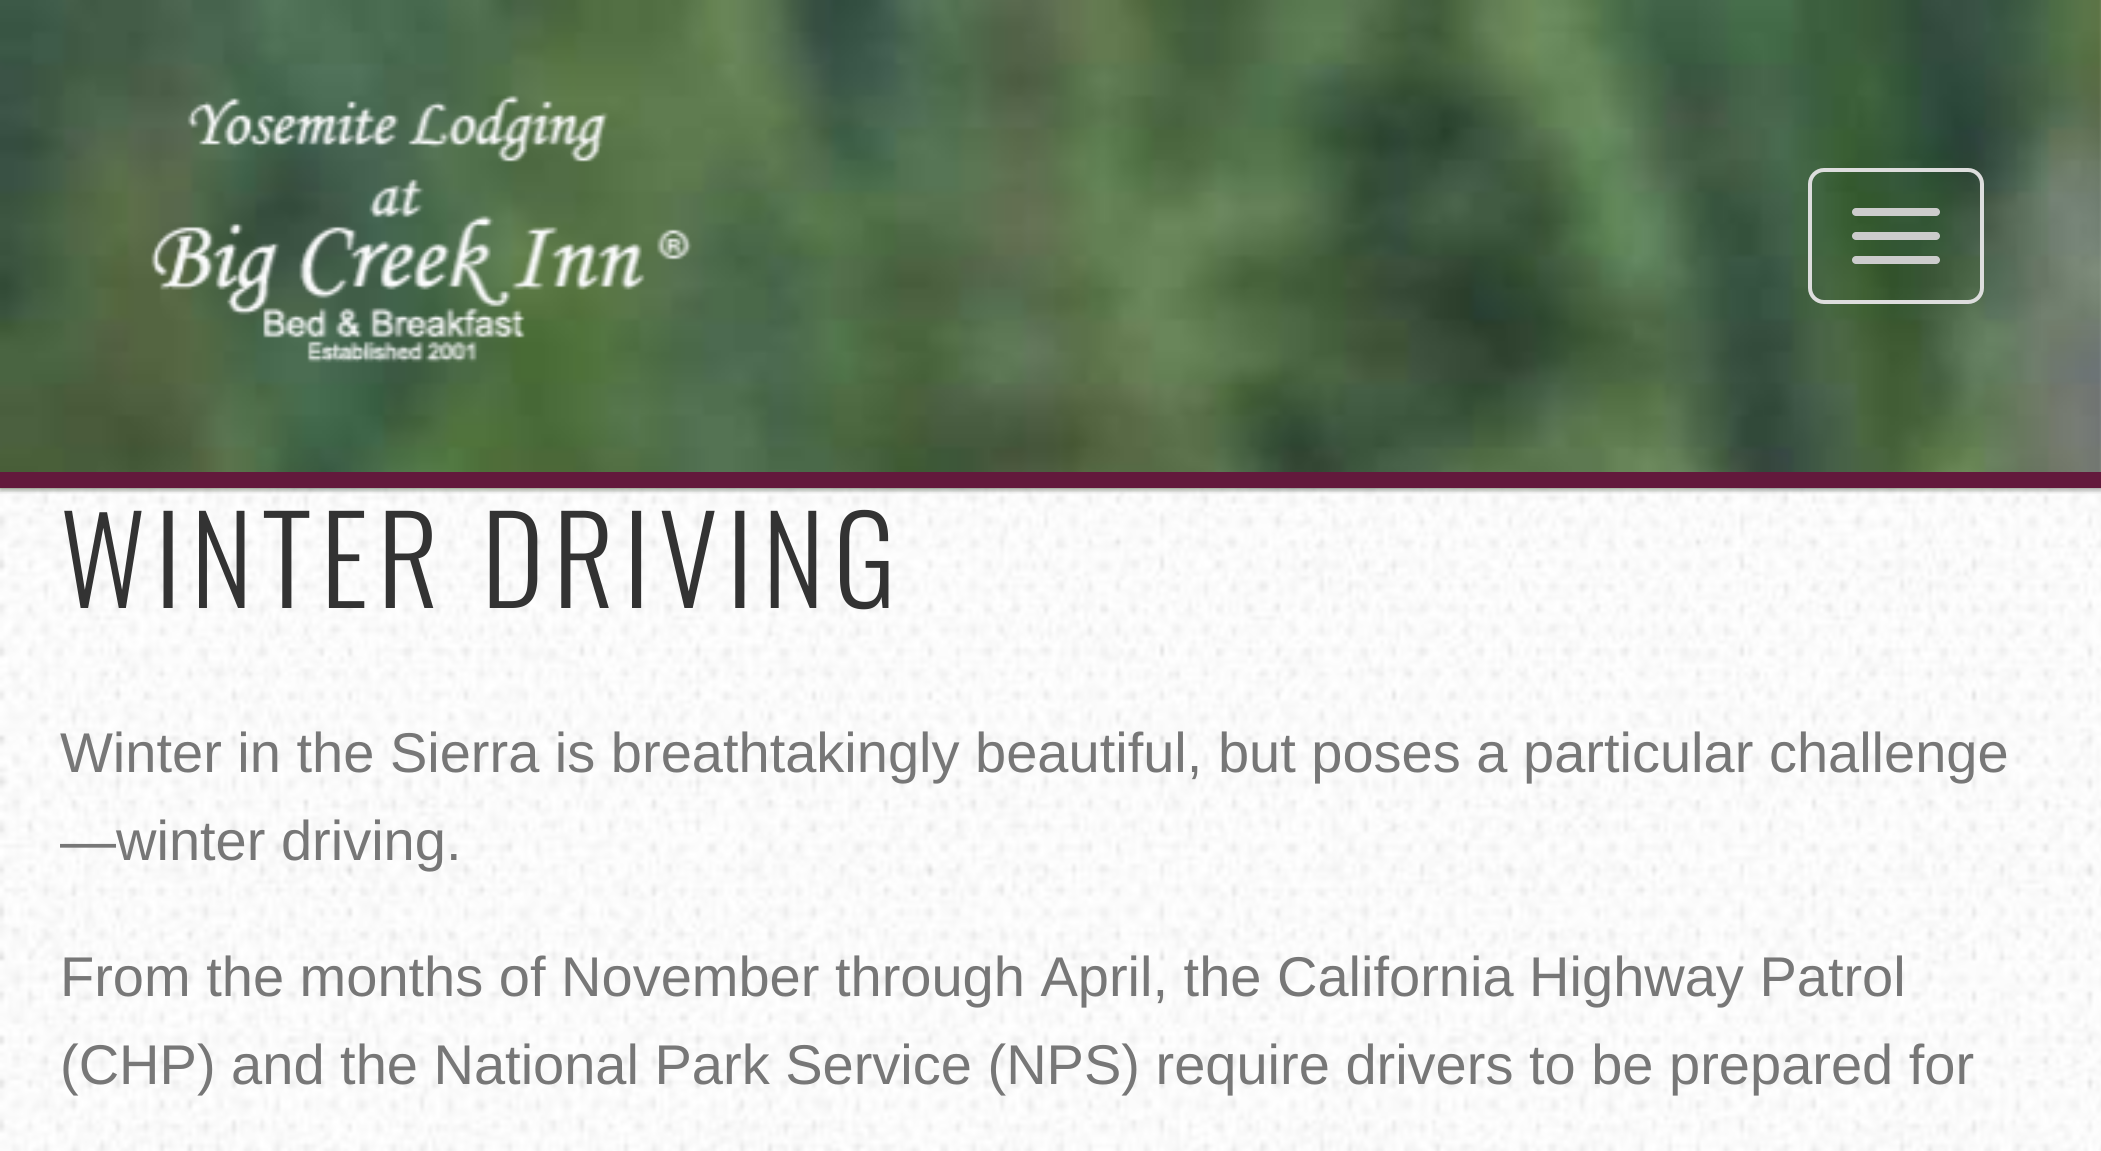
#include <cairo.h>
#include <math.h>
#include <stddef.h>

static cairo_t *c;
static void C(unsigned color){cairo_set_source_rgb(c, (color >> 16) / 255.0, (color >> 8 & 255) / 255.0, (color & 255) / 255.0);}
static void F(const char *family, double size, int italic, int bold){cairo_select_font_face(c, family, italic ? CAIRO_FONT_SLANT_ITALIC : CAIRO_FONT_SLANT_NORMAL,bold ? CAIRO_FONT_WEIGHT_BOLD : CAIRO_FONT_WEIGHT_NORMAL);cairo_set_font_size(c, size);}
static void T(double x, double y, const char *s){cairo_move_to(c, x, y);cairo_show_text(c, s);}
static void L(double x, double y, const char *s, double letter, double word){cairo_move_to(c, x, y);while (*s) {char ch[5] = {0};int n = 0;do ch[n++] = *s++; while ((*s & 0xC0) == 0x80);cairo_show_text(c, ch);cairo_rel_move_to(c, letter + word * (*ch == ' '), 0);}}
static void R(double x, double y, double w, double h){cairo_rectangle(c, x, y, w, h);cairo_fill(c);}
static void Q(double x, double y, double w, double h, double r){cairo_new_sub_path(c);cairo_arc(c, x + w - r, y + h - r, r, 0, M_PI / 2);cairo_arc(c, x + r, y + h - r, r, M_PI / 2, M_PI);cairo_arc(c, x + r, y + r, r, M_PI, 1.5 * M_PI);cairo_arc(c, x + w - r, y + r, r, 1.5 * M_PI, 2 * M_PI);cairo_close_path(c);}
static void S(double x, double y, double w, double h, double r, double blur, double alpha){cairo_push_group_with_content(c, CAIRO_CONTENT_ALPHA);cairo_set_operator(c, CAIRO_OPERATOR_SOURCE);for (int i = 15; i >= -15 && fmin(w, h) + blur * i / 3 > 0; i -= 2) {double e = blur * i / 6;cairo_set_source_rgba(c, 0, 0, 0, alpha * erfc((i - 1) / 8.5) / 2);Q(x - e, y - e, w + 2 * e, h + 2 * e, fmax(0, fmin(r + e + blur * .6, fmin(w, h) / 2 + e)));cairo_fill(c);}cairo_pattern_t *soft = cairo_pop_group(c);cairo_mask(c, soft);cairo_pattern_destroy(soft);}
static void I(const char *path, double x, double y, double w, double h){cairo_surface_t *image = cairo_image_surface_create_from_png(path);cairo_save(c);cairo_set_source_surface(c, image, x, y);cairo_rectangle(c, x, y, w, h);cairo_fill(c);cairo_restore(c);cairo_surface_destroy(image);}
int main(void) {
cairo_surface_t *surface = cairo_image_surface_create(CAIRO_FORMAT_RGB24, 2101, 1151);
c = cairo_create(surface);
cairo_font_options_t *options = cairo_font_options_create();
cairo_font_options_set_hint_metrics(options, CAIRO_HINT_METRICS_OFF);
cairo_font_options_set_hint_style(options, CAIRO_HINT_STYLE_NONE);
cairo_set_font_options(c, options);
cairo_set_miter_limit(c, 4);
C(0xffffff);
cairo_paint(c);
I("1.png",0,0,2101,1151);
cairo_save(c);
cairo_rectangle(c,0,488,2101,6);
cairo_clip(c);
C(0x000000);
S(0,4,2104,488,0,2,.15);
cairo_restore(c);
I("2.png",0,0,2101,492);
C(0x63193c);
R(0,472,2101,16);
I("3.png",151,95,541,268);
Q(1810,170,172,132,14);
C(0xdddddd);
cairo_set_line_width(c,4);
cairo_stroke(c);
C(0xcccccc);
Q(1852,208,88,8,4);
cairo_fill(c);
Q(1852,232,88,8,4);
cairo_fill(c);
Q(1852,256,88,8,4);
cairo_fill(c);
F("Oswald Light",120,0,0);
C(0x333333);
L(60,608,"WINTER DRIVING",9,0);
F("Liberation Sans",56,0,0);
C(0x777777);
T(60,772,"Winter in the Sierra is breathtakingly beautiful, but poses a particular challenge");
T(60,860,"—winter driving.");
T(60,996,"From the months of November through April, the California Highway Patrol");
T(60,1084,"(CHP) and the National Park Service (NPS) require drivers to be prepared for");
cairo_surface_write_to_png(surface, "o.png");
cairo_font_options_destroy(options);
cairo_destroy(c);
cairo_surface_destroy(surface);
return 0;
}
